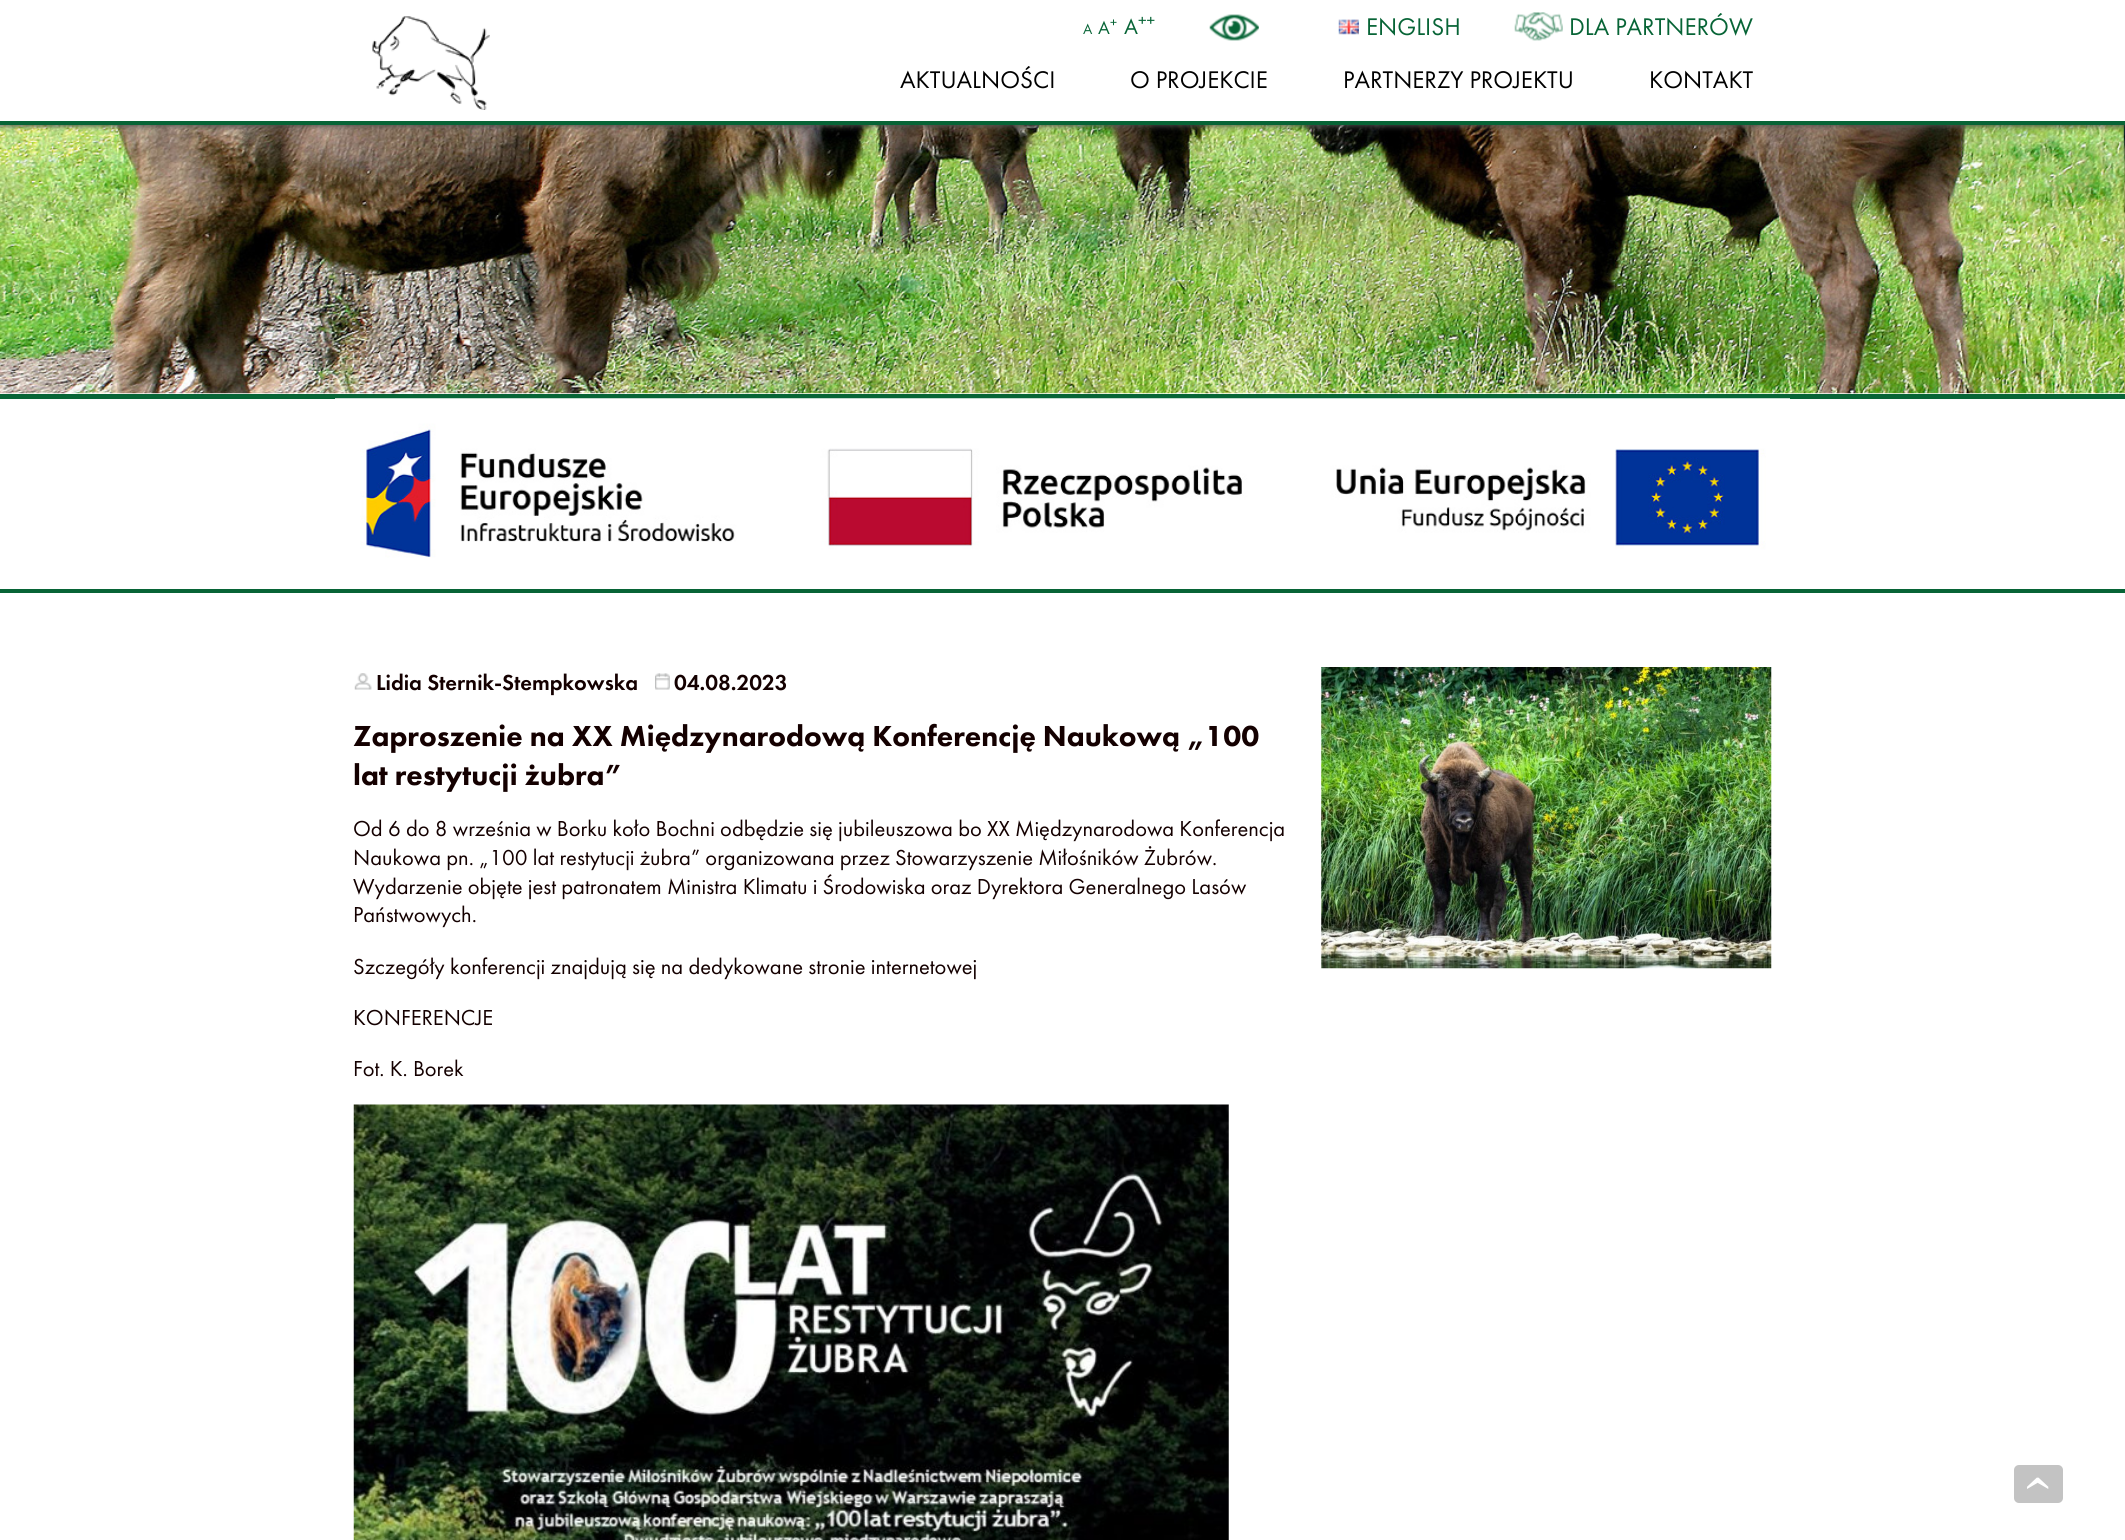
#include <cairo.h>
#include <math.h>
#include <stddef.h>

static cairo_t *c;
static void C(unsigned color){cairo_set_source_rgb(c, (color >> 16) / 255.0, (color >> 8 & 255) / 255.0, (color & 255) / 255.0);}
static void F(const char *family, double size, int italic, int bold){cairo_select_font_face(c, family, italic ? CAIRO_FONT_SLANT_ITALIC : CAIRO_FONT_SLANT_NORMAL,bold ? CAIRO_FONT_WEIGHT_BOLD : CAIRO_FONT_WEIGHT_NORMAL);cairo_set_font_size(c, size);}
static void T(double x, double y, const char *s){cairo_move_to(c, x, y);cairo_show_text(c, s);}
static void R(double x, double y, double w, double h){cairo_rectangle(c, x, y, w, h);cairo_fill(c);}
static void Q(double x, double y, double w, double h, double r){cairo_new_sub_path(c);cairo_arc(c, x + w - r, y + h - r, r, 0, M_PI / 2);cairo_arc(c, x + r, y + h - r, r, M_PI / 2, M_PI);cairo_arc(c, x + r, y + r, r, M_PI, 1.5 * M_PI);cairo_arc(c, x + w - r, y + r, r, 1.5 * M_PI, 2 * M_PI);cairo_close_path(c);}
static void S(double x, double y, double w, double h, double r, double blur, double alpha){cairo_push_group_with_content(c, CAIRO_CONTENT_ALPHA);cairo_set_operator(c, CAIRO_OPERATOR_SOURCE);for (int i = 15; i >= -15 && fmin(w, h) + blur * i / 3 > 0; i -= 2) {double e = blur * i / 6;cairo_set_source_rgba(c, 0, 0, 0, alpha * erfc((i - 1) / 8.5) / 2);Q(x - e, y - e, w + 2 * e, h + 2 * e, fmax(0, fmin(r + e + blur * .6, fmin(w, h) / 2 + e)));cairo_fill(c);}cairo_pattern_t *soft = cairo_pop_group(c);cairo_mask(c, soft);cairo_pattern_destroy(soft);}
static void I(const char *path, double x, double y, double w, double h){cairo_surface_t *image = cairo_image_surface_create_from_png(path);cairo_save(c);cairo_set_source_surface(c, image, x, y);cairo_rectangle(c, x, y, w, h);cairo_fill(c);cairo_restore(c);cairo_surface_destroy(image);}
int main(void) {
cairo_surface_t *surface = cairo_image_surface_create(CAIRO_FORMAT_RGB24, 2125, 1540);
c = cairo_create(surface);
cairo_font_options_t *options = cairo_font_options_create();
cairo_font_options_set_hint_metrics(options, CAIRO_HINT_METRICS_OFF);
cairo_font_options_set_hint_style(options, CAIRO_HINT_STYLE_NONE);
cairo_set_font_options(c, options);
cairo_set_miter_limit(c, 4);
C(0xffffff);
cairo_paint(c);
I("5.png",0,125,2125,269);
C(0x4f4f4f);
S(-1,1,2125,125,0,3,1);
C(0xffffff);
R(0,0,2125,121);
C(0x076436);
R(0,121,2125,4);
I("1.png",372,16,118,94);
F("Futura PT",15,0,0);
T(1083,34,"A");
F("Futura PT",19,0,0);
T(1098,34,"A");
F("Futura PT",14,0,0);
T(1110,27,"+");
F("Futura PT",22.5,0,0);
T(1124,34,"A");
F("Futura PT",17,0,0);
T(1138,26,"++");
I("2.png",1209,14,50,27);
I("3.png",1338,19,21,16);
F("Futura PT",25,0,0);
T(1366,35,"ENGLISH");
I("4.png",1514,12,49,29);
T(1569,35,"DLA PARTNERÓW");
C(0x000000);
T(900,88,"AKTUALNOŚCI");
T(1130,88,"O PROJEKCIE");
T(1343,88,"PARTNERZY PROJEKTU");
T(1649,88,"KONTAKT");
C(0x076436);
R(0,394,2125,5);
R(0,589,2125,4);
I("6.png",335,398,1455,160);
I("7.png",354,673,18,17);
F("Futura PT Medium",22.5,0,0);
C(0x140000);
T(376,690,"Lidia Sternik-Stempkowska");
I("8.png",655,673,15,17);
T(674,690,"04.08.2023");
I("9.png",1321,667,451,302);
F("Futura PT Black",30,0,0);
T(353,746,"Zaproszenie na XX Międzynarodową Konferencję Naukową „100");
T(353,785,"lat restytucji żubra”");
F("Futura PT",22.5,0,0);
T(353,836,"Od 6 do 8 września w Borku koło Bochni odbędzie się jubileuszowa bo XX Międzynarodowa Konferencja");
T(353,865,"Naukowa pn. „100 lat restytucji żubra” organizowana przez Stowarzyszenie Miłośników Żubrów.");
T(353,894,"Wydarzenie objęte jest patronatem Ministra Klimatu i Środowiska oraz Dyrektora Generalnego Lasów");
T(353,922,"Państwowych.");
T(353,974,"Szczegóły konferencji znajdują się na dedykowane stronie internetowej");
T(353,1025,"KONFERENCJE");
T(353,1076,"Fot. K. Borek");
I("10.png",353,1104,876,436);
C(0xc3c3c3);
Q(2014,1465,49,38,5);
cairo_fill(c);
F("Liberation Serif",56,0,0);
C(0xffffff);
cairo_save(c);
cairo_translate(c,2025,1474);
cairo_rotate(c,90 * M_PI / 180);
T(0,0,"‹");
cairo_restore(c);
cairo_surface_write_to_png(surface, "o.png");
cairo_font_options_destroy(options);
cairo_destroy(c);
cairo_surface_destroy(surface);
return 0;
}
